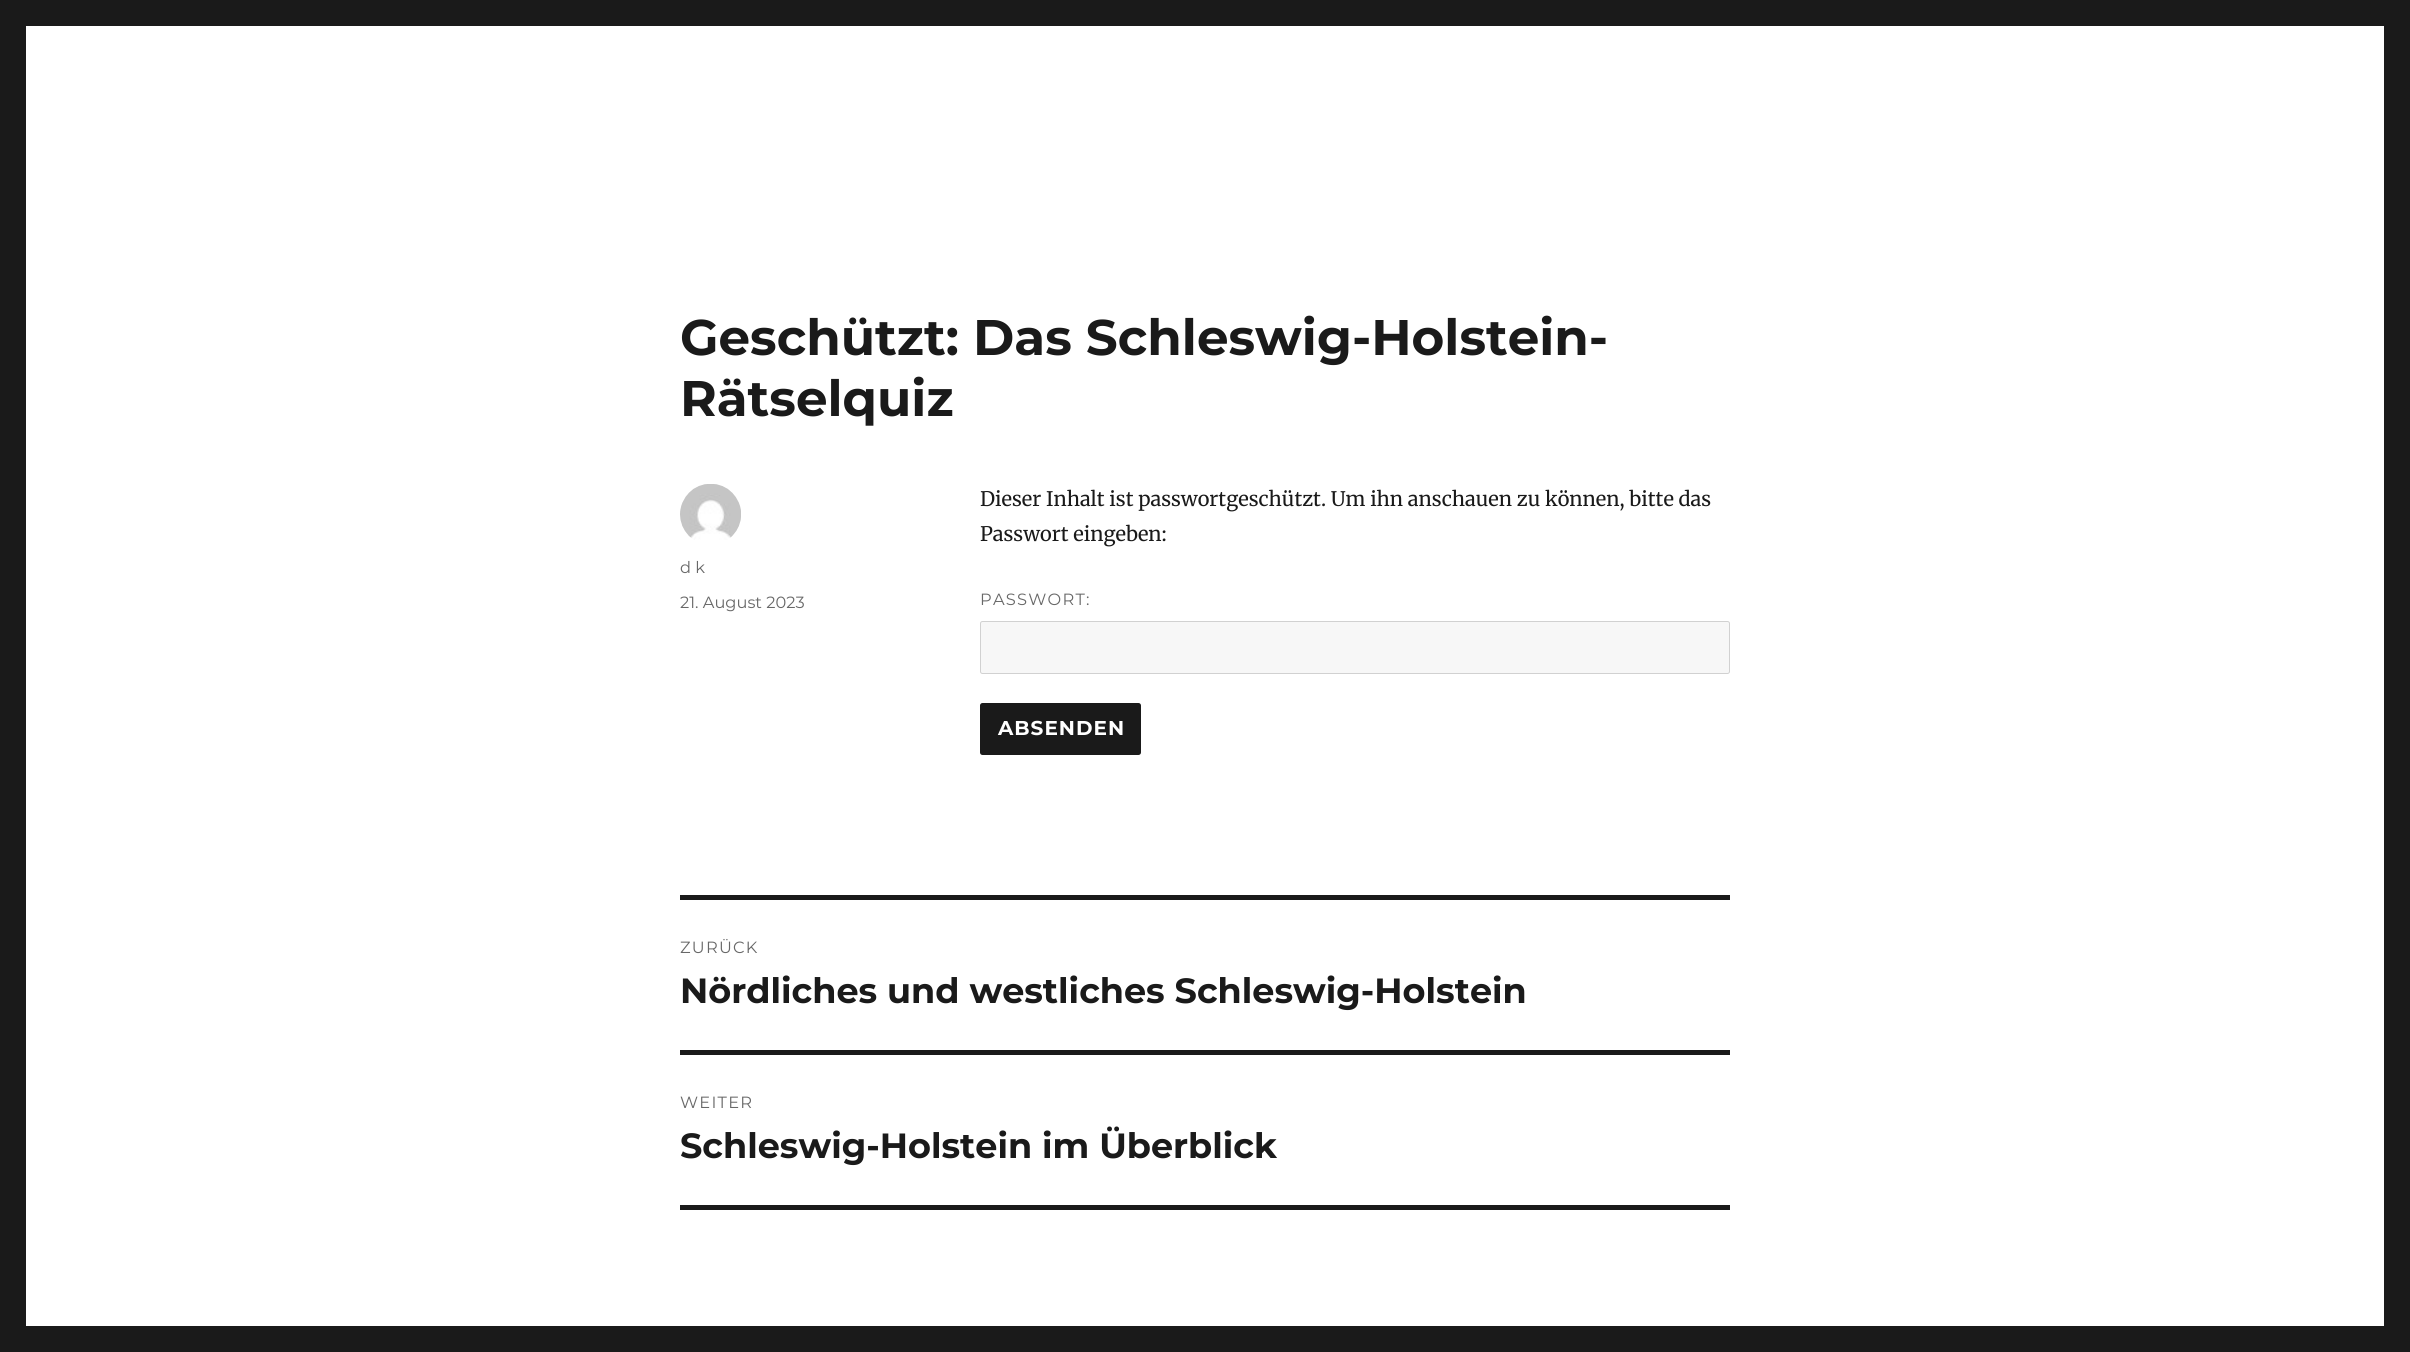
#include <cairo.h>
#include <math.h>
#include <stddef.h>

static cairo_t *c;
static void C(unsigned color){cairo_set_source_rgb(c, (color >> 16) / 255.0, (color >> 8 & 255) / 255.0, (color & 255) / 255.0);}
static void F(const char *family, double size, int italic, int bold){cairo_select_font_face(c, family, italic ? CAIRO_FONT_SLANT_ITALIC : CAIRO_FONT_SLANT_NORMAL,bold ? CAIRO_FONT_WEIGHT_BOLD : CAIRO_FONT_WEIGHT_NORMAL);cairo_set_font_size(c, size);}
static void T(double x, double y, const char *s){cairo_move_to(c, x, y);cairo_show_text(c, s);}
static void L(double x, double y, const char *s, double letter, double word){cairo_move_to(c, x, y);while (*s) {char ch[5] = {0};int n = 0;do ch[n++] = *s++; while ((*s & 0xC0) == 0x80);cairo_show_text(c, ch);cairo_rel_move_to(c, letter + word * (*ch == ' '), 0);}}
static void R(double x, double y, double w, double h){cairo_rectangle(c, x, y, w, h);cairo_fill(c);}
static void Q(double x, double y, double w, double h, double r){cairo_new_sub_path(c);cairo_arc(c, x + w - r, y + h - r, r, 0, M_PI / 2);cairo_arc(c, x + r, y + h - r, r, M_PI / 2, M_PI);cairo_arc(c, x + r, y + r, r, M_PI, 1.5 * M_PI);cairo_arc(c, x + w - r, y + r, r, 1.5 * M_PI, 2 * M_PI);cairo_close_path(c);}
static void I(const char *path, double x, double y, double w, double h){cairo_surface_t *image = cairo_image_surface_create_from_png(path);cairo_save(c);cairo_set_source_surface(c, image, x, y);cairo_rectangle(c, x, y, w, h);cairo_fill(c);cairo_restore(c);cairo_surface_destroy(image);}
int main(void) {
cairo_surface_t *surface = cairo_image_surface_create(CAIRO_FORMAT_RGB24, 2410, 1352);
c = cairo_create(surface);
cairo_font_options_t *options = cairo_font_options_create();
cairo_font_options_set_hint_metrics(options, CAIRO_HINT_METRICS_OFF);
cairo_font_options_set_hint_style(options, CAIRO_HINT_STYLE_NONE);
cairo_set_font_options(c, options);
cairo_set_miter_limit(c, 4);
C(0x1a1a1a);
cairo_paint(c);
C(0xffffff);
R(26,26,2358,1300);
F("Montserrat",50,0,1);
C(0x1a1a1a);
T(680,355,"Geschützt: Das Schleswig-Holstein-");
T(680,416,"Rätselquiz");
I("1.png",680,484,61,56);
F("Montserrat",16.25,0,0);
C(0x686868);
T(680,573,"d k");
T(680,608,"21. August 2023");
F("Merriweather",20,0,0);
C(0x1a1a1a);
T(980,506,"Dieser Inhalt ist passwortgeschützt. Um ihn anschauen zu können, bitte das");
T(980,541,"Passwort eingeben:");
F("Montserrat",16.25,0,0);
C(0x686868);
L(980,605,"PASSWORT:",1.25,0);
C(0xf7f7f7);
Q(980.5,621.5,749,52,2);
cairo_fill_preserve(c);
C(0xd1d1d1);
cairo_set_line_width(c,1);
cairo_stroke(c);
C(0x1a1a1a);
Q(980,703,161,52,2.5);
cairo_fill(c);
F("Montserrat",20,0,1);
C(0xffffff);
L(998,735,"ABSENDEN",1,0);
C(0x1a1a1a);
R(680,895,1050,5);
R(680,1205,1050,5);
F("Montserrat",16.25,0,0);
C(0x686868);
L(680,953,"ZURÜCK",1.25,0);
F("Montserrat",35,0,1);
C(0x1a1a1a);
T(680,1003,"Nördliches und westliches Schleswig-Holstein");
R(680,1050,1050,5);
F("Montserrat",16.25,0,0);
C(0x686868);
L(680,1108,"WEITER",1.25,0);
F("Montserrat",35,0,1);
C(0x1a1a1a);
T(680,1158,"Schleswig-Holstein im Überblick");
cairo_surface_write_to_png(surface, "o.png");
cairo_font_options_destroy(options);
cairo_destroy(c);
cairo_surface_destroy(surface);
return 0;
}
